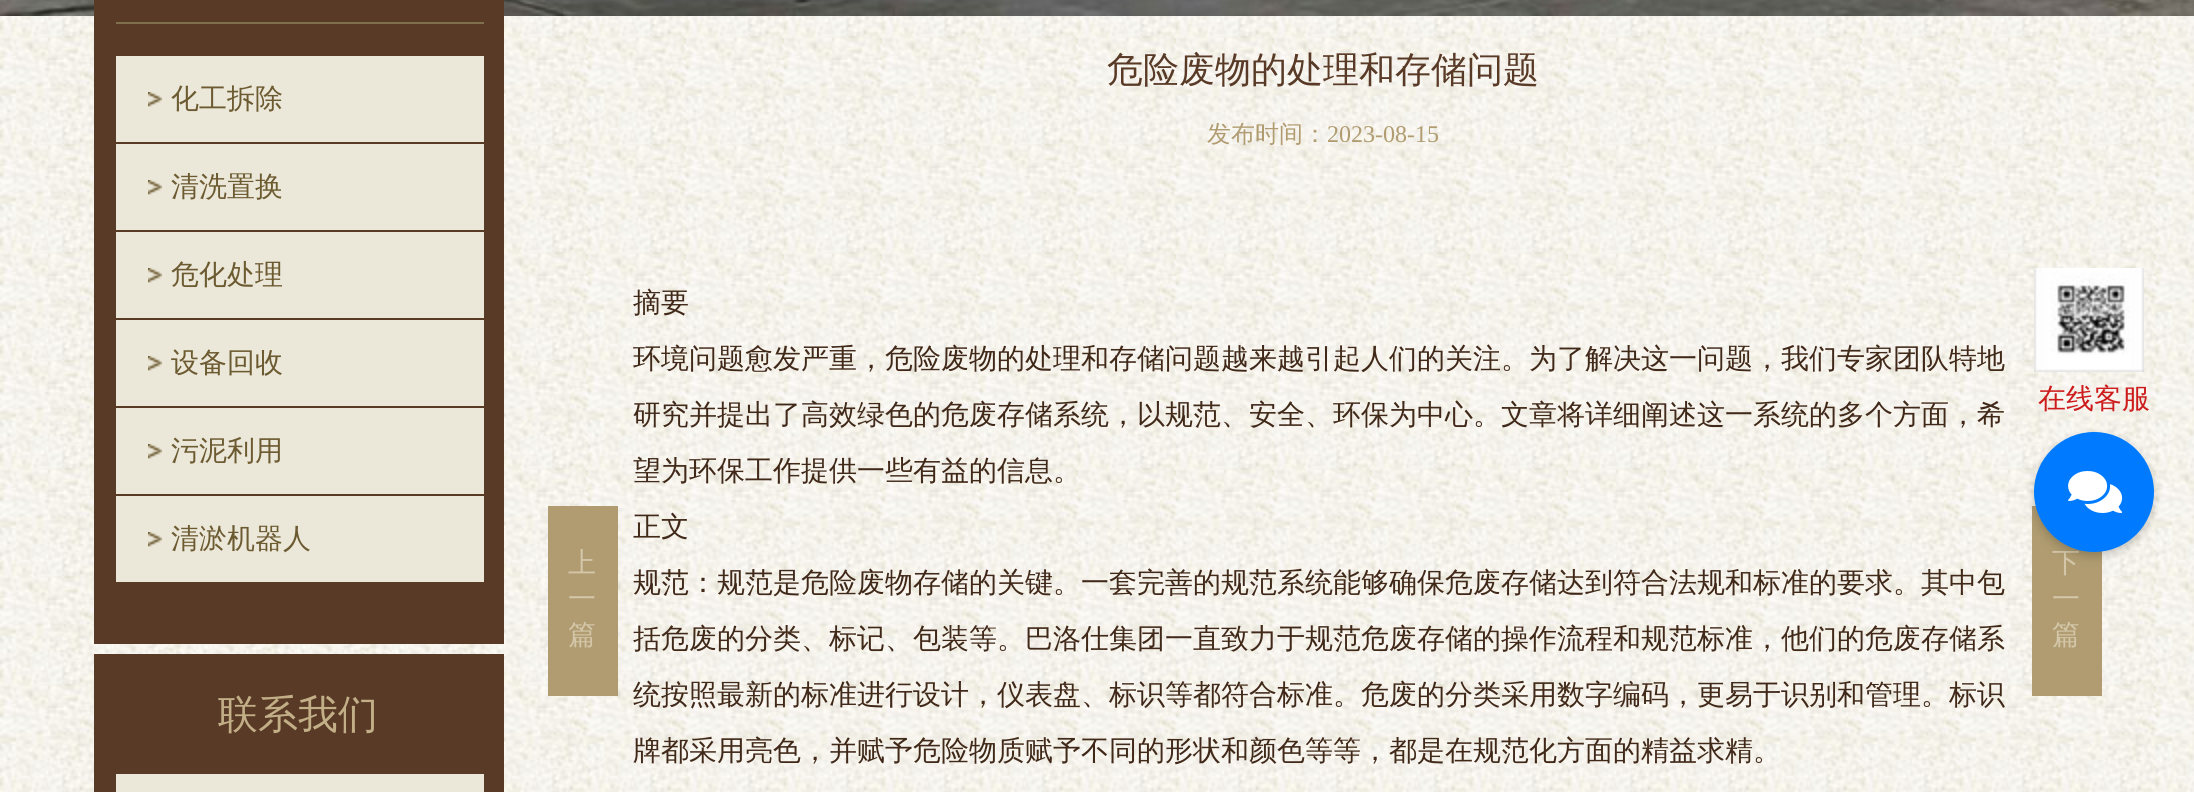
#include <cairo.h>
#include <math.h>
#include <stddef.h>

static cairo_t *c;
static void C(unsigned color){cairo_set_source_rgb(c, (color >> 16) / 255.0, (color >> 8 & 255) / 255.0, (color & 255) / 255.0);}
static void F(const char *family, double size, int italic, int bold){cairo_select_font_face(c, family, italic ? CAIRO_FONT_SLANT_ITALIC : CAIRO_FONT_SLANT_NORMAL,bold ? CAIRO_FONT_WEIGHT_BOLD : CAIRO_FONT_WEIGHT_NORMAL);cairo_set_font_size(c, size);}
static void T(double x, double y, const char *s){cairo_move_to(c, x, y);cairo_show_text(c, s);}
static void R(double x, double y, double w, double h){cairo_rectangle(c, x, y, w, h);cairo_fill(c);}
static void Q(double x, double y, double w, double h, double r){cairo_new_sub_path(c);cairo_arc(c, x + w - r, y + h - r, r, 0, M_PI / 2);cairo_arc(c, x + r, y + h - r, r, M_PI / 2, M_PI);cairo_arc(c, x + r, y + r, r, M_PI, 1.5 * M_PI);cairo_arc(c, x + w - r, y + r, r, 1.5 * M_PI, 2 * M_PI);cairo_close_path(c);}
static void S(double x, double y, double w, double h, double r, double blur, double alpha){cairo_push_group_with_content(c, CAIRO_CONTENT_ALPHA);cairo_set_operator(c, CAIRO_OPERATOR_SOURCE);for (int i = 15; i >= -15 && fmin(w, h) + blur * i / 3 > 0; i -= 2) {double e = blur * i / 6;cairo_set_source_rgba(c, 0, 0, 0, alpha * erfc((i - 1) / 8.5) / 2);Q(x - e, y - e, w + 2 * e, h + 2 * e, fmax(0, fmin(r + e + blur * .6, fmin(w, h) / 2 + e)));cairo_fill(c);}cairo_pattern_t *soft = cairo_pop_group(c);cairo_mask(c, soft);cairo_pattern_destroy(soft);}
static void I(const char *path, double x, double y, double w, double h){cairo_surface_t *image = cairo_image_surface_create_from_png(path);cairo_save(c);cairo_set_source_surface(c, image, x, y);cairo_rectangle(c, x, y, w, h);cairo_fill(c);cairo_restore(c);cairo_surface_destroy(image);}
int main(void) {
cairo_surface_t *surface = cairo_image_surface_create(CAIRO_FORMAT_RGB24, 2194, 792);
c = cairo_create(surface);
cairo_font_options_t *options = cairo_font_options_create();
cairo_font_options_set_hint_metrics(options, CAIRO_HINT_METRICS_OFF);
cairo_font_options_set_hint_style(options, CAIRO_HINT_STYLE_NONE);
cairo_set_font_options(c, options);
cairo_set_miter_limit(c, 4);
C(0xffffff);
cairo_paint(c);
I("1.png",0,16,2194,776);
I("2.png",0,0,2194,16);
C(0x583a26);
R(94,0,410,644);
C(0x806f4f);
R(116,22,368,2);
C(0xebe7d9);
R(116,56,368,526);
I("3.png",148,92,14,15);
C(0x583a26);
R(116,142,368,2);
F("WenQuanYi Zen Hei Medium",28,0,0);
C(0x6c5a30);
T(171,108,"化工拆除");
I("3.png",148,180,14,15);
C(0x583a26);
R(116,230,368,2);
C(0x6c5a30);
T(171,196,"清洗置换");
I("3.png",148,268,14,15);
C(0x583a26);
R(116,318,368,2);
C(0x6c5a30);
T(171,284,"危化处理");
I("3.png",148,356,14,15);
C(0x583a26);
R(116,406,368,2);
C(0x6c5a30);
T(171,372,"设备回收");
I("3.png",148,444,14,15);
C(0x583a26);
R(116,494,368,2);
C(0x6c5a30);
T(171,460,"污泥利用");
I("3.png",148,532,14,15);
T(171,548,"清淤机器人");
C(0x583a26);
R(94,654,410,138);
F("WenQuanYi Zen Hei Medium",40,0,0);
C(0xc2af87);
T(218,728,"联系我们");
C(0xebe7d9);
R(116,774,368,18);
C(0xb09c70);
R(548,506,70,190);
F("WenQuanYi Zen Hei Medium",28,0,0);
C(0xd3c6a9);
T(568,572,"上");
T(568,608,"一");
T(568,644,"篇");
F("WenQuanYi Zen Hei Medium",36,0,0);
C(0x583a26);
T(1107,82,"危险废物的处理和存储问题");
F("WenQuanYi Zen Hei Medium",24,0,0);
C(0xb09c70);
T(1207,142,"发布时间：");
F("Liberation Serif",24,0,0);
T(1327,142,"2023-08-15");
F("WenQuanYi Zen Hei Medium",28,0,0);
C(0x412919);
T(633,312,"摘要");
T(633,368,"环境问题愈发严重，危险废物的处理和存储问题越来越引起人们的关注。为了解决这一问题，我们专家团队特地");
T(633,424,"研究并提出了高效绿色的危废存储系统，以规范、安全、环保为中心。文章将详细阐述这一系统的多个方面，希");
T(633,480,"望为环保工作提供一些有益的信息。");
T(633,536,"正文");
T(633,592,"规范：规范是危险废物存储的关键。一套完善的规范系统能够确保危废存储达到符合法规和标准的要求。其中包");
T(633,648,"括危废的分类、标记、包装等。巴洛仕集团一直致力于规范危废存储的操作流程和规范标准，他们的危废存储系");
T(633,704,"统按照最新的标准进行设计，仪表盘、标识等都符合标准。危废的分类采用数字编码，更易于识别和管理。标识");
T(633,760,"牌都采用亮色，并赋予危险物质赋予不同的形状和颜色等等，都是在规范化方面的精益求精。");
C(0xb09c70);
R(2032,506,70,190);
C(0xd3c6a9);
T(2052,572,"下");
T(2052,608,"一");
T(2052,644,"篇");
I("4.png",2034,268,110,104);
C(0x000000);
S(2034,436,120,120,60,5,.2);
C(0x007bff);
cairo_arc(c,2094,492,60,0,2 * M_PI);
cairo_fill(c);
C(0xcd1c1c);
T(2038,408,"在线客服");
I("5.png",2068,471,55,42);
cairo_surface_write_to_png(surface, "o.png");
cairo_font_options_destroy(options);
cairo_destroy(c);
cairo_surface_destroy(surface);
return 0;
}
